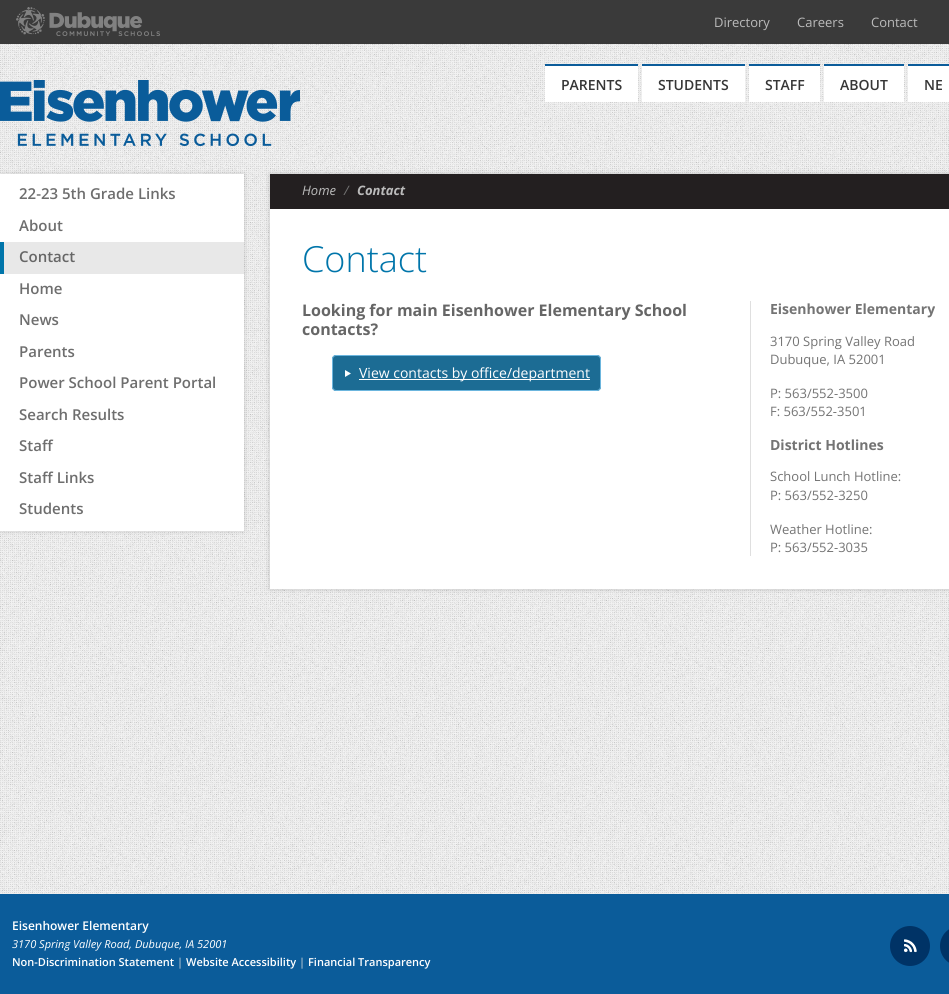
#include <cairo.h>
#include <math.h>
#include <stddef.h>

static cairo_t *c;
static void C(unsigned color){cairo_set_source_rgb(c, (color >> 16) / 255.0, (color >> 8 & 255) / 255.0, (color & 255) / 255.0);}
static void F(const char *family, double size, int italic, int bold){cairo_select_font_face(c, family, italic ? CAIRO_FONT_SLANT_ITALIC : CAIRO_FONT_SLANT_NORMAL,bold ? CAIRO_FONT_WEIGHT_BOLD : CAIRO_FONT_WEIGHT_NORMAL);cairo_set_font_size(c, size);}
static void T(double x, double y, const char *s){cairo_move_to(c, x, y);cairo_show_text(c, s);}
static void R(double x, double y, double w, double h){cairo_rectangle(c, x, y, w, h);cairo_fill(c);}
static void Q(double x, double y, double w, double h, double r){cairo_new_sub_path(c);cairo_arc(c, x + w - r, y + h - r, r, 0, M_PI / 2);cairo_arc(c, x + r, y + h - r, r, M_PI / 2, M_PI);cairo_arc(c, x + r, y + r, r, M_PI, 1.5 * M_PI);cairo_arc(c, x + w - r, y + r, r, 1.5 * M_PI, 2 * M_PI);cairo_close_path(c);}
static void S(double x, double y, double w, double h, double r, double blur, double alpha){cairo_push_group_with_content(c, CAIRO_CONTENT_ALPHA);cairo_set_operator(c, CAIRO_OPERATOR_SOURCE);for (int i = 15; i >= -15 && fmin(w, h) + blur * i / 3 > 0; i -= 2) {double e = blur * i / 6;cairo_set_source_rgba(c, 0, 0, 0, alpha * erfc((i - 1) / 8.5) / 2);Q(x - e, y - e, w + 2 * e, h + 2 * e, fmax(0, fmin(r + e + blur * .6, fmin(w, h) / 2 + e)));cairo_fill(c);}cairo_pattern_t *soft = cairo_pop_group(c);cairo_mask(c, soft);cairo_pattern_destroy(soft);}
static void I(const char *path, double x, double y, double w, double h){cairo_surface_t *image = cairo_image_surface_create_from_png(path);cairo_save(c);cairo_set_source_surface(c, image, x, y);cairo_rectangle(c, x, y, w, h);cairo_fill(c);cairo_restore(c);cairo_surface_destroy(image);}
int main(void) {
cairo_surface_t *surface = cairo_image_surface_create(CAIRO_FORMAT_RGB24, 949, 994);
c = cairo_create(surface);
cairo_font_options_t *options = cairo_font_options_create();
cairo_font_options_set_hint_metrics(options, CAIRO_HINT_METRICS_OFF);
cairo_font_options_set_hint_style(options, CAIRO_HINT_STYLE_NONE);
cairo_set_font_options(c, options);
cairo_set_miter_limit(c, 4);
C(0xffffff);
cairo_paint(c);
I("1.png",0,44,949,850);
C(0x3a3a3a);
R(0,0,949,44);
I("2.png",16,7,144,29);
F("Open Sans",13,0,0);
C(0xbbbbbb);
T(714,27,"Directory");
T(797,27,"Careers");
T(871,27,"Contact");
I("3.png",0,80,300,66);
C(0xffffff);
R(545,66,93,36);
C(0x0b5c9a);
R(545,64,93,2);
F("Open Sans SemiBold",14,0,0);
C(0x363636);
T(561,90,"PARENTS");
C(0xffffff);
R(642,66,103,36);
C(0x0b5c9a);
R(642,64,103,2);
C(0x363636);
T(658,90,"STUDENTS");
C(0xffffff);
R(749,66,71,36);
C(0x0b5c9a);
R(749,64,71,2);
C(0x363636);
T(765,90,"STAFF");
C(0xffffff);
R(824,66,80,36);
C(0x0b5c9a);
R(824,64,80,2);
C(0x363636);
T(840,90,"ABOUT");
C(0xffffff);
R(908,66,41,36);
C(0x0b5c9a);
R(908,64,41,2);
C(0x363636);
T(924,90,"NE");
C(0x000000);
S(0,174,244,357,0,2.5,.15);
C(0xffffff);
R(0,174,244,357);
F("Open Sans SemiBold",15,0,0);
C(0x6e6e6e);
T(19,199,"22-23 5th Grade Links");
T(19,231,"About");
C(0xe8e8e8);
R(4,242,240,32);
C(0x0075aa);
R(0,242,4,32);
C(0x666666);
T(19,262,"Contact");
C(0x6e6e6e);
T(19,294,"Home");
T(19,325,"News");
T(19,357,"Parents");
T(19,388,"Power School Parent Portal");
T(19,420,"Search Results");
T(19,451,"Staff");
T(19,483,"Staff Links");
T(19,514,"Students");
C(0x000000);
S(270,174,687,415,0,2.5,.2);
C(0xffffff);
R(270,209,679,380);
C(0x231f20);
R(270,174,679,35);
F("Open Sans",13,1,0);
C(0xbbbbbb);
T(302,195,"Home");
C(0x747474);
T(344,195,"/");
F("Open Sans",13,1,1);
C(0xbbbbbb);
T(357,195,"Contact");
F("Open Sans Light",36,0,0);
C(0x0075aa);
T(302,272,"Contact");
F("Open Sans",16,0,1);
C(0x666666);
T(302,316,"Looking for main Eisenhower Elementary School");
T(302,335,"contacts?");
C(0x1c6c94);
Q(332,355,269,36,4);
cairo_fill(c);
I("4.png",345,370,6,7);
Q(332.5,355.5,268,35,3.5);
C(0x6cb6de);
cairo_set_line_width(c,1);
cairo_stroke(c);
C(0xffffff);
R(359,379,231,1);
F("Open Sans",14,0,0);
T(359,378,"View contacts by office/department");
C(0xdfdfdf);
R(750,301,1,255);
F("Open Sans",14,0,1);
C(0x747474);
T(770,314,"Eisenhower Elementary");
F("Open Sans",13,0,0);
T(770,346,"3170 Spring Valley Road");
T(770,364,"Dubuque, IA 52001");
T(770,398,"P: 563/552-3500");
T(770,416,"F: 563/552-3501");
F("Open Sans",14,0,1);
T(770,450,"District Hotlines");
F("Open Sans",13,0,0);
T(770,481,"School Lunch Hotline:");
T(770,500,"P: 563/552-3250");
T(770,534,"Weather Hotline:");
T(770,552,"P: 563/552-3035");
C(0x0b5c9a);
R(0,894,949,100);
F("Open Sans SemiBold",12,0,0);
C(0xffffff);
T(12,930,"Eisenhower Elementary");
F("Open Sans",11,1,0);
T(12,948,"3170 Spring Valley Road, Dubuque, IA 52001");
F("Open Sans SemiBold",11,0,0);
T(12,966,"Non-Discrimination Statement");
F("Open Sans",11,0,0);
C(0xdddddd);
T(177,966,"|");
F("Open Sans SemiBold",11,0,0);
C(0xffffff);
T(186,966,"Website Accessibility");
F("Open Sans",11,0,0);
C(0xdddddd);
T(299,966,"|");
F("Open Sans SemiBold",11,0,0);
C(0xffffff);
T(308,966,"Financial Transparency");
C(0x003366);
cairo_new_path(c);
cairo_arc(c,910,946,20,0,2 * M_PI);
cairo_fill(c);
I("5.png",904,939,13,14);
Q(940,926,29,40,20);
cairo_fill(c);
cairo_surface_write_to_png(surface, "o.png");
cairo_font_options_destroy(options);
cairo_destroy(c);
cairo_surface_destroy(surface);
return 0;
}
